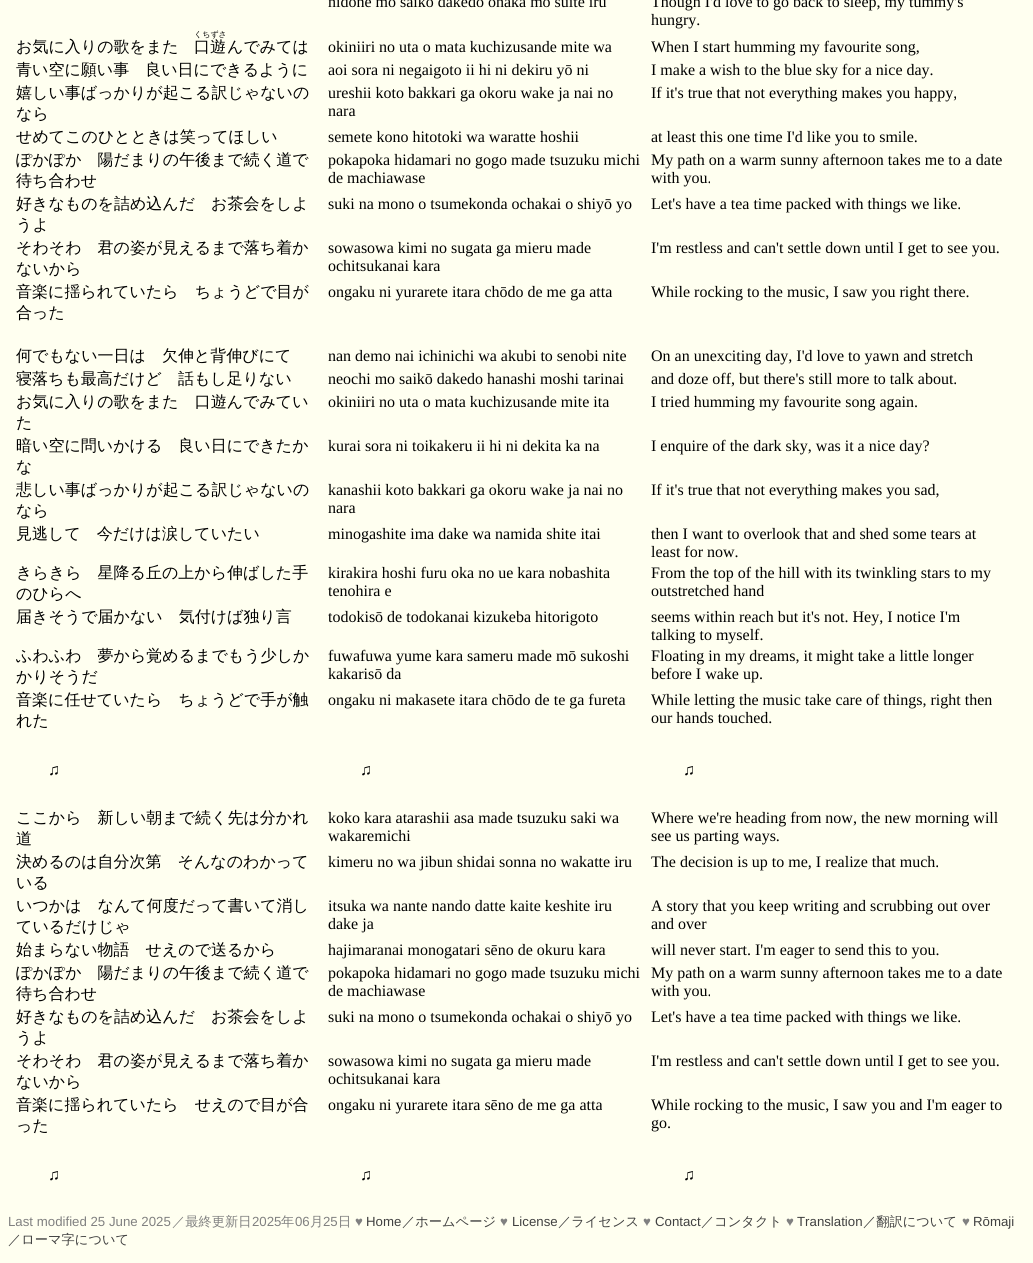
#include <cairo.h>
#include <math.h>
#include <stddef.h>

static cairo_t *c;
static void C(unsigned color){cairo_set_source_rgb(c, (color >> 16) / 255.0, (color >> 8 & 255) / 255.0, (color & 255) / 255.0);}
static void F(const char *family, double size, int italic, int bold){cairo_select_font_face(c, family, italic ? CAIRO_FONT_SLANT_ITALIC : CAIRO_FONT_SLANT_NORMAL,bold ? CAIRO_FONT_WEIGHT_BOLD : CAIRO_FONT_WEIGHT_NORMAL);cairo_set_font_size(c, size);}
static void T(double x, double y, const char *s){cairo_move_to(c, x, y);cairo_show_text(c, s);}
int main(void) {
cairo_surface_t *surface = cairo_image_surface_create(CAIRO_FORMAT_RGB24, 1033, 1263);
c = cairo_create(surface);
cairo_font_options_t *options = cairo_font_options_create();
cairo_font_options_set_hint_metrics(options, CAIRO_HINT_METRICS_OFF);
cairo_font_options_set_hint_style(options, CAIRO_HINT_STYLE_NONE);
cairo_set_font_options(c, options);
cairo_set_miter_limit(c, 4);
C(0xfffff0);
cairo_paint(c);
F("Liberation Serif",16,0,0);
C(0x000000);
T(328,7,"nidone mo saikō dakedo onaka mo suite iru");
T(651,7,"Though I'd love to go back to sleep, my tummy's");
T(651,25,"hungry.");
F("WenQuanYi Zen Hei Medium",16,0,0);
T(16,52,"お気に入りの歌をまた");
F("WenQuanYi Zen Hei Medium",8,0,0);
T(194,37,"くちずさ");
F("WenQuanYi Zen Hei Medium",16,0,0);
T(194,52,"口遊");
T(227,52,"んでみては");
F("Liberation Serif",16,0,0);
T(328,52,"okiniiri no uta o mata kuchizusande mite wa");
T(651,52,"When I start humming my favourite song,");
F("WenQuanYi Zen Hei Medium",16,0,0);
T(16,75,"青い空に願い事　良い日にできるように");
F("Liberation Serif",16,0,0);
T(328,75,"aoi sora ni negaigoto ii hi ni dekiru yō ni");
T(651,75,"I make a wish to the blue sky for a nice day.");
F("WenQuanYi Zen Hei Medium",16,0,0);
T(16,98,"嬉しい事ばっかりが起こる訳じゃないの");
T(16,119,"なら");
F("Liberation Serif",16,0,0);
T(328,98,"ureshii koto bakkari ga okoru wake ja nai no");
T(328,116,"nara");
T(651,98,"If it's true that not everything makes you happy,");
F("WenQuanYi Zen Hei Medium",16,0,0);
T(16,142,"せめてこのひとときは笑ってほしい");
F("Liberation Serif",16,0,0);
T(328,142,"semete kono hitotoki wa waratte hoshii");
T(651,142,"at least this one time I'd like you to smile.");
F("WenQuanYi Zen Hei Medium",16,0,0);
T(16,165,"ぽかぽか　陽だまりの午後まで続く道で");
T(16,186,"待ち合わせ");
F("Liberation Serif",16,0,0);
T(328,165,"pokapoka hidamari no gogo made tsuzuku michi");
T(328,183,"de machiawase");
T(651,165,"My path on a warm sunny afternoon takes me to a date");
T(651,183,"with you.");
F("WenQuanYi Zen Hei Medium",16,0,0);
T(16,209,"好きなものを詰め込んだ　お茶会をしよ");
T(16,230,"うよ");
F("Liberation Serif",16,0,0);
T(328,209,"suki na mono o tsumekonda ochakai o shiyō yo");
T(651,209,"Let's have a tea time packed with things we like.");
F("WenQuanYi Zen Hei Medium",16,0,0);
T(16,253,"そわそわ　君の姿が見えるまで落ち着か");
T(16,274,"ないから");
F("Liberation Serif",16,0,0);
T(328,253,"sowasowa kimi no sugata ga mieru made");
T(328,271,"ochitsukanai kara");
T(651,253,"I'm restless and can't settle down until I get to see you.");
F("WenQuanYi Zen Hei Medium",16,0,0);
T(16,297,"音楽に揺られていたら　ちょうどで目が");
T(16,318,"合った");
F("Liberation Serif",16,0,0);
T(328,297,"ongaku ni yurarete itara chōdo de me ga atta");
T(651,297,"While rocking to the music, I saw you right there.");
F("WenQuanYi Zen Hei Medium",16,0,0);
T(16,361,"何でもない一日は　欠伸と背伸びにて");
F("Liberation Serif",16,0,0);
T(328,361,"nan demo nai ichinichi wa akubi to senobi nite");
T(651,361,"On an unexciting day, I'd love to yawn and stretch");
F("WenQuanYi Zen Hei Medium",16,0,0);
T(16,384,"寝落ちも最高だけど　話もし足りない");
F("Liberation Serif",16,0,0);
T(328,384,"neochi mo saikō dakedo hanashi moshi tarinai");
T(651,384,"and doze off, but there's still more to talk about.");
F("WenQuanYi Zen Hei Medium",16,0,0);
T(16,407,"お気に入りの歌をまた　口遊んでみてい");
T(16,428,"た");
F("Liberation Serif",16,0,0);
T(328,407,"okiniiri no uta o mata kuchizusande mite ita");
T(651,407,"I tried humming my favourite song again.");
F("WenQuanYi Zen Hei Medium",16,0,0);
T(16,451,"暗い空に問いかける　良い日にできたか");
T(16,472,"な");
F("Liberation Serif",16,0,0);
T(328,451,"kurai sora ni toikakeru ii hi ni dekita ka na");
T(651,451,"I enquire of the dark sky, was it a nice day?");
F("WenQuanYi Zen Hei Medium",16,0,0);
T(16,495,"悲しい事ばっかりが起こる訳じゃないの");
T(16,516,"なら");
F("Liberation Serif",16,0,0);
T(328,495,"kanashii koto bakkari ga okoru wake ja nai no");
T(328,513,"nara");
T(651,495,"If it's true that not everything makes you sad,");
F("WenQuanYi Zen Hei Medium",16,0,0);
T(16,539,"見逃して　今だけは涙していたい");
F("Liberation Serif",16,0,0);
T(328,539,"minogashite ima dake wa namida shite itai");
T(651,539,"then I want to overlook that and shed some tears at");
T(651,557,"least for now.");
F("WenQuanYi Zen Hei Medium",16,0,0);
T(16,578,"きらきら　星降る丘の上から伸ばした手");
T(16,599,"のひらへ");
F("Liberation Serif",16,0,0);
T(328,578,"kirakira hoshi furu oka no ue kara nobashita");
T(328,596,"tenohira e");
T(651,578,"From the top of the hill with its twinkling stars to my");
T(651,596,"outstretched hand");
F("WenQuanYi Zen Hei Medium",16,0,0);
T(16,622,"届きそうで届かない　気付けば独り言");
F("Liberation Serif",16,0,0);
T(328,622,"todokisō de todokanai kizukeba hitorigoto");
T(651,622,"seems within reach but it's not. Hey, I notice I'm");
T(651,640,"talking to myself.");
F("WenQuanYi Zen Hei Medium",16,0,0);
T(16,661,"ふわふわ　夢から覚めるまでもう少しか");
T(16,682,"かりそうだ");
F("Liberation Serif",16,0,0);
T(328,661,"fuwafuwa yume kara sameru made mō sukoshi");
T(328,679,"kakarisō da");
T(651,661,"Floating in my dreams, it might take a little longer");
T(651,679,"before I wake up.");
F("WenQuanYi Zen Hei Medium",16,0,0);
T(16,705,"音楽に任せていたら　ちょうどで手が触");
T(16,726,"れた");
F("Liberation Serif",16,0,0);
T(328,705,"ongaku ni makasete itara chōdo de te ga fureta");
T(651,705,"While letting the music take care of things, right then");
T(651,723,"our hands touched.");
T(48,775,"♫");
T(360,775,"♫");
T(683,775,"♫");
F("WenQuanYi Zen Hei Medium",16,0,0);
T(16,823,"ここから　新しい朝まで続く先は分かれ");
T(16,844,"道");
F("Liberation Serif",16,0,0);
T(328,823,"koko kara atarashii asa made tsuzuku saki wa");
T(328,841,"wakaremichi");
T(651,823,"Where we're heading from now, the new morning will");
T(651,841,"see us parting ways.");
F("WenQuanYi Zen Hei Medium",16,0,0);
T(16,867,"決めるのは自分次第　そんなのわかって");
T(16,888,"いる");
F("Liberation Serif",16,0,0);
T(328,867,"kimeru no wa jibun shidai sonna no wakatte iru");
T(651,867,"The decision is up to me, I realize that much.");
F("WenQuanYi Zen Hei Medium",16,0,0);
T(16,911,"いつかは　なんて何度だって書いて消し");
T(16,932,"ているだけじゃ");
F("Liberation Serif",16,0,0);
T(328,911,"itsuka wa nante nando datte kaite keshite iru");
T(328,929,"dake ja");
T(651,911,"A story that you keep writing and scrubbing out over");
T(651,929,"and over");
F("WenQuanYi Zen Hei Medium",16,0,0);
T(16,955,"始まらない物語　せえので送るから");
F("Liberation Serif",16,0,0);
T(328,955,"hajimaranai monogatari sēno de okuru kara");
T(651,955,"will never start. I'm eager to send this to you.");
F("WenQuanYi Zen Hei Medium",16,0,0);
T(16,978,"ぽかぽか　陽だまりの午後まで続く道で");
T(16,999,"待ち合わせ");
F("Liberation Serif",16,0,0);
T(328,978,"pokapoka hidamari no gogo made tsuzuku michi");
T(328,996,"de machiawase");
T(651,978,"My path on a warm sunny afternoon takes me to a date");
T(651,996,"with you.");
F("WenQuanYi Zen Hei Medium",16,0,0);
T(16,1022,"好きなものを詰め込んだ　お茶会をしよ");
T(16,1043,"うよ");
F("Liberation Serif",16,0,0);
T(328,1022,"suki na mono o tsumekonda ochakai o shiyō yo");
T(651,1022,"Let's have a tea time packed with things we like.");
F("WenQuanYi Zen Hei Medium",16,0,0);
T(16,1066,"そわそわ　君の姿が見えるまで落ち着か");
T(16,1087,"ないから");
F("Liberation Serif",16,0,0);
T(328,1066,"sowasowa kimi no sugata ga mieru made");
T(328,1084,"ochitsukanai kara");
T(651,1066,"I'm restless and can't settle down until I get to see you.");
F("WenQuanYi Zen Hei Medium",16,0,0);
T(16,1110,"音楽に揺られていたら　せえので目が合");
T(16,1131,"った");
F("Liberation Serif",16,0,0);
T(328,1110,"ongaku ni yurarete itara sēno de me ga atta");
T(651,1110,"While rocking to the music, I saw you and I'm eager to");
T(651,1128,"go.");
T(48,1180,"♫");
T(360,1180,"♫");
T(683,1180,"♫");
F("Liberation Sans",13.25,0,0);
C(0x808080);
T(8,1226,"Last modified 25 June 2025");
F("WenQuanYi Zen Hei Medium",13.25,0,0);
T(172,1226,"／最終更新日");
F("Liberation Sans",13.25,0,0);
T(252,1226,"2025");
F("WenQuanYi Zen Hei Medium",13.25,0,0);
T(281,1226,"年");
F("Liberation Sans",13.25,0,0);
T(295,1226,"06");
F("WenQuanYi Zen Hei Medium",13.25,0,0);
T(310,1226,"月");
F("Liberation Sans",13.25,0,0);
T(323,1226,"25");
F("WenQuanYi Zen Hei Medium",13.25,0,0);
T(338,1226,"日");
F("Liberation Sans",13.25,0,0);
T(355,1226,"♥");
C(0x404040);
T(366,1226,"Home");
F("WenQuanYi Zen Hei Medium",13.25,0,0);
T(402,1226,"／ホームページ");
F("Liberation Sans",13.25,0,0);
C(0x808080);
T(500,1226,"♥");
C(0x404040);
T(512,1226,"License");
F("WenQuanYi Zen Hei Medium",13.25,0,0);
T(558,1226,"／ライセンス");
F("Liberation Sans",13.25,0,0);
C(0x808080);
T(643,1226,"♥");
C(0x404040);
T(655,1226,"Contact");
F("WenQuanYi Zen Hei Medium",13.25,0,0);
T(701,1226,"／コンタクト");
F("Liberation Sans",13.25,0,0);
C(0x808080);
T(786,1226,"♥");
C(0x404040);
T(797,1226,"Translation");
F("WenQuanYi Zen Hei Medium",13.25,0,0);
T(863,1226,"／翻訳について");
F("Liberation Sans",13.25,0,0);
C(0x808080);
T(962,1226,"♥");
C(0x404040);
T(973,1226,"Rōmaji");
F("WenQuanYi Zen Hei Medium",13.25,0,0);
T(8,1244,"／ローマ字について");
cairo_surface_write_to_png(surface, "o.png");
cairo_font_options_destroy(options);
cairo_destroy(c);
cairo_surface_destroy(surface);
return 0;
}
